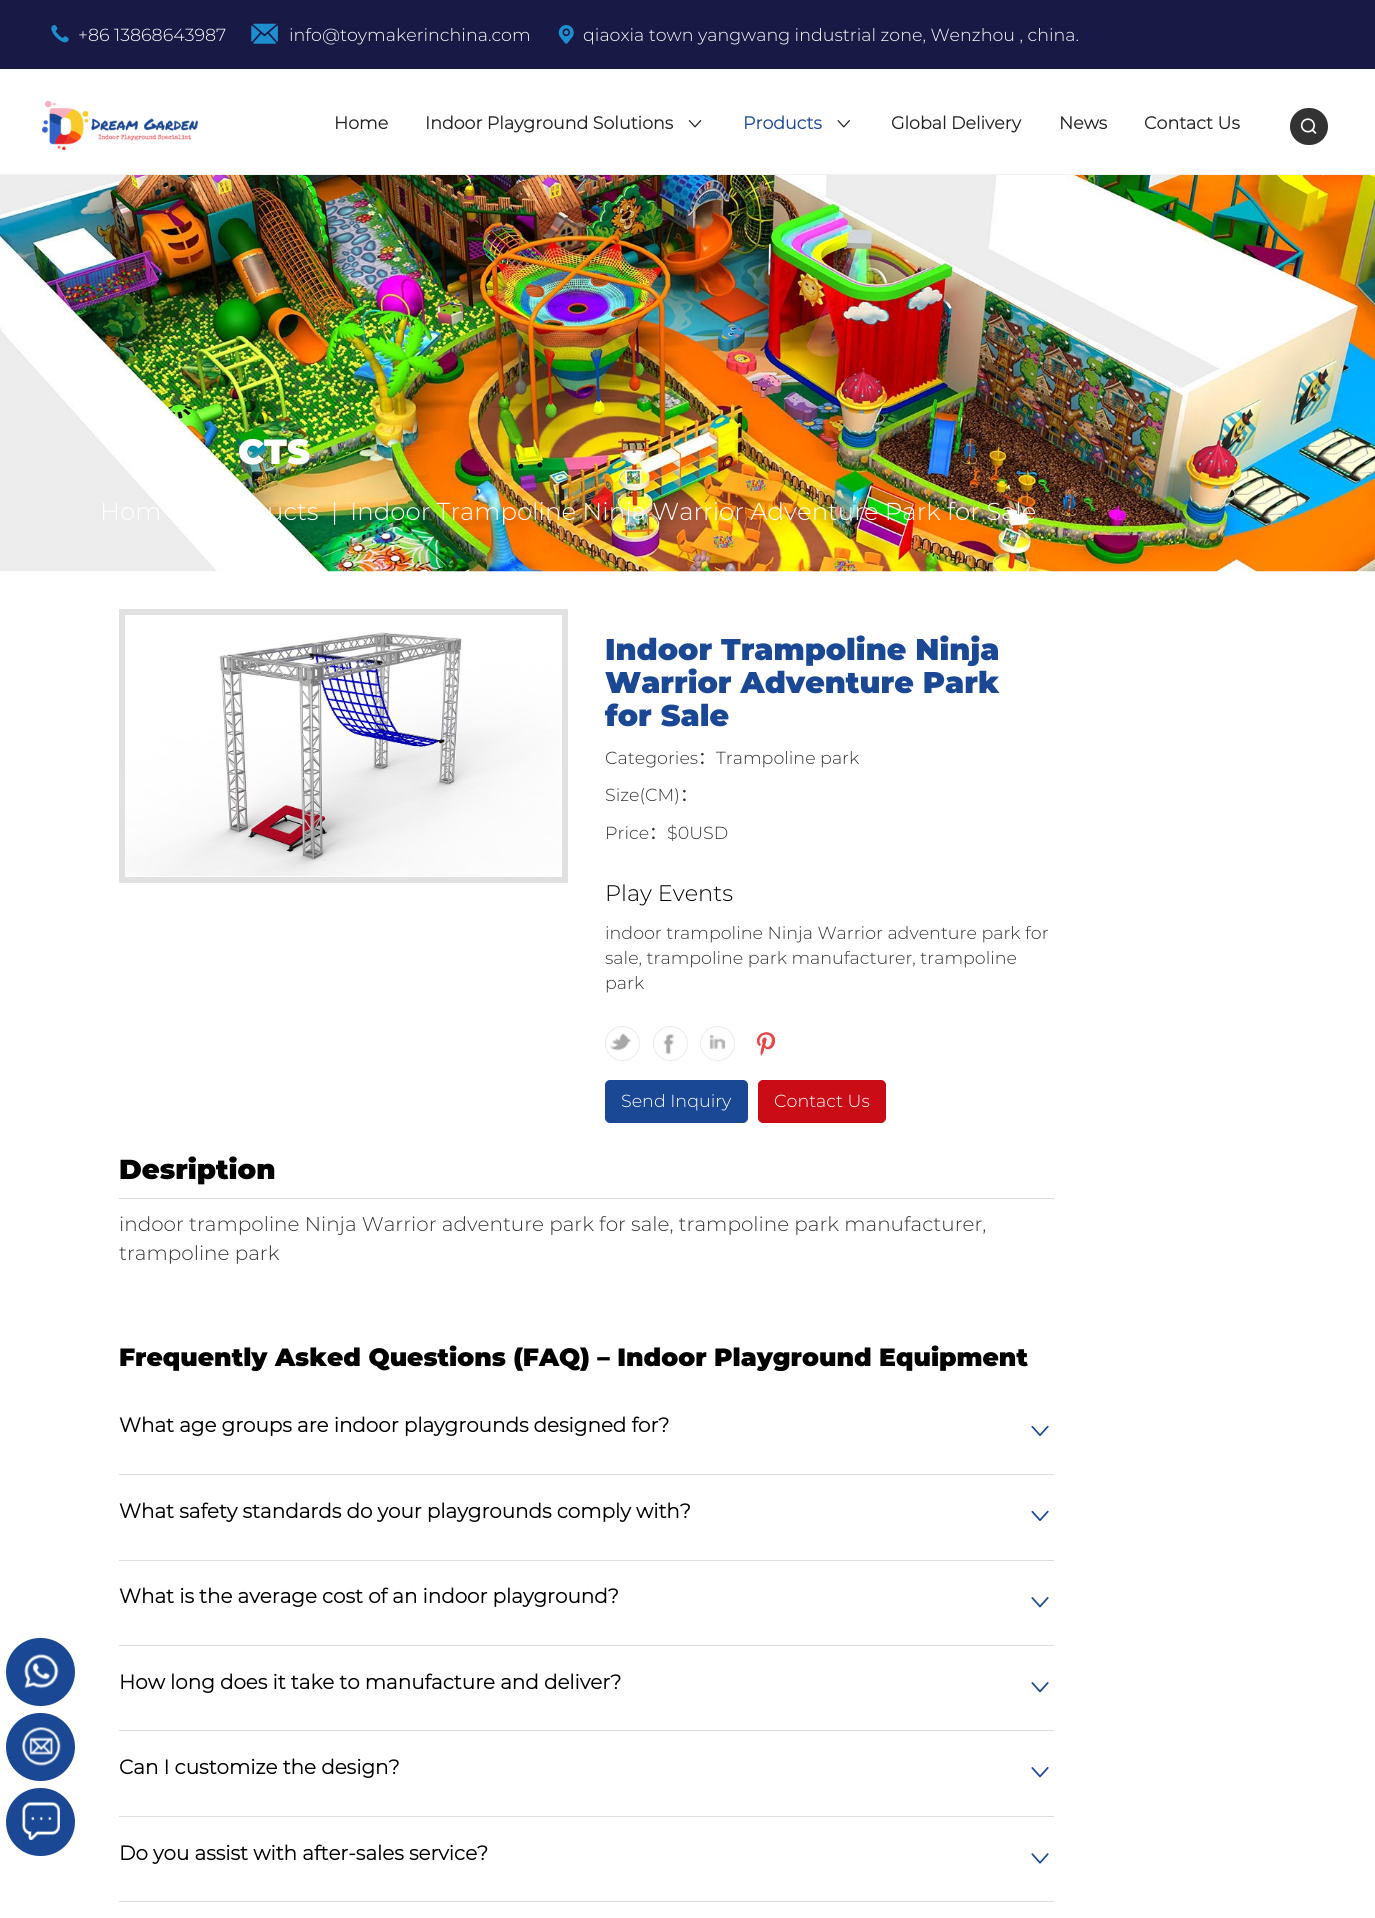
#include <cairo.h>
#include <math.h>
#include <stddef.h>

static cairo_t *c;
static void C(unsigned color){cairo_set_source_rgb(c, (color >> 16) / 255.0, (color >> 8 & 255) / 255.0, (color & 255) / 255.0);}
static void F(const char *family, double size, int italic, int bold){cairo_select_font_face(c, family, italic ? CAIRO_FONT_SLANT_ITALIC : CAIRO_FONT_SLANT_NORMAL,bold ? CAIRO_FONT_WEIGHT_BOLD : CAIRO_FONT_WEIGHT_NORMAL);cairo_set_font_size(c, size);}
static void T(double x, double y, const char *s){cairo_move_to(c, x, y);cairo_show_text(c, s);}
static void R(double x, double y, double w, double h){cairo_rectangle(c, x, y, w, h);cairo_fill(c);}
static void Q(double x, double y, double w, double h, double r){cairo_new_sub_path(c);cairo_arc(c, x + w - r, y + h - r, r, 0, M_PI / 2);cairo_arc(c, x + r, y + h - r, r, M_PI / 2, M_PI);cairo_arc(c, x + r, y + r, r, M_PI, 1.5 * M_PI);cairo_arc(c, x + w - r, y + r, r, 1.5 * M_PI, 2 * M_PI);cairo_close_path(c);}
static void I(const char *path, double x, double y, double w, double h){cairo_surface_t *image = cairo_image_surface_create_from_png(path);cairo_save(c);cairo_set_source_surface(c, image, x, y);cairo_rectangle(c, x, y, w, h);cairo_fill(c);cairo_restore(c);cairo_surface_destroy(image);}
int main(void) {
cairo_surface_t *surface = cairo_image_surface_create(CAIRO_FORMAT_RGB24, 1375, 1918);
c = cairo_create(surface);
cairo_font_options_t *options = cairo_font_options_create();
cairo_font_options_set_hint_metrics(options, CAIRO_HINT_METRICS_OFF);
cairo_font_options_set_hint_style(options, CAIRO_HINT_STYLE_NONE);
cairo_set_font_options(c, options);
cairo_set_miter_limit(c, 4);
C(0xffffff);
cairo_paint(c);
C(0xf2f2f2);
R(0,174,1375,1);
C(0x181945);
R(0,0,1375,69);
I("1.png",51,24,18,19);
F("Montserrat Light",17.5,0,0);
C(0xffffff);
T(78,41,"+86 13868643987");
I("2.png",251,23,27,21);
T(289,41,"info@toymakerinchina.com");
I("3.png",558,25,16,19);
T(583,41,"qiaoxia town yangwang industrial zone, Wenzhou , china.");
I("4.png",42,100,156,50);
F("Montserrat",17.5,0,1);
C(0x222222);
T(334,129,"Home");
T(425,129,"Indoor Playground Solutions");
I("5.png",688,120,14,8);
C(0x1a4894);
T(743,129,"Products");
I("6.png",837,120,13,8);
C(0x222222);
T(891,129,"Global Delivery");
T(1059,129,"News");
T(1144,129,"Contact Us");
C(0x333333);
Q(1290,108,38,37,18.5);
cairo_fill(c);
I("7.png",1300,118,17,16);
I("8.png",0,175,1375,397);
F("Montserrat Black",35,0,0);
C(0xffffff);
T(238,464,"CTS");
F("Montserrat Light",24.5,0,0);
T(100,520,"Hom");
T(267,520,"ucts");
T(331,520,"|");
T(350,520,"Indoor Trampoline Ninja Warrior Adventure Park for Sale");
C(0x1a4894);
Q(6,1638,69,68,34);
cairo_fill(c);
I("9.png",24,1654,35,35);
Q(6,1713,69,68,34);
cairo_fill(c);
I("10.png",22,1727,39,39);
cairo_rectangle(c,122,612,443,268);
C(0xe1e1e1);
cairo_set_line_width(c,6);
cairo_stroke(c);
I("11.png",125,632,436,245);
F("Montserrat Black",30,0,0);
C(0x1a4894);
T(605,660,"Indoor Trampoline Ninja");
T(605,693,"Warrior Adventure Park");
T(605,726,"for Sale");
F("Montserrat Light",17.5,0,0);
C(0x333333);
T(605,764,"Categories");
F("Noto Sans CJK SC",17.5,0,0);
T(698,764,"：");
F("Montserrat Light",17.5,0,0);
T(716,764,"Trampoline park");
T(605,801,"Size(CM)");
F("Noto Sans CJK SC",17.5,0,0);
T(680,801,"：");
F("Montserrat Light",17.5,0,0);
T(605,839,"Price");
F("Noto Sans CJK SC",17.5,0,0);
T(649,839,"：");
F("Montserrat Light",17.5,0,0);
T(667,839,"$0USD");
F("Montserrat Light",22.5,0,0);
C(0x000000);
T(605,901,"Play Events");
F("Montserrat Light",17.5,0,0);
C(0x333333);
T(605,939,"indoor trampoline Ninja Warrior adventure park for");
T(605,964,"sale, trampoline park manufacturer, trampoline");
T(605,989,"park");
I("12.png",609,1033,23,18);
cairo_arc(c,622.5,1043.5,17,0,2 * M_PI);
C(0xebebeb);
cairo_set_line_width(c,1);
cairo_stroke(c);
I("13.png",663,1033,11,21);
cairo_arc(c,670.5,1043.5,17,0,2 * M_PI);
cairo_stroke(c);
I("14.png",709,1034,17,15);
cairo_arc(c,717.5,1043.5,17,0,2 * M_PI);
cairo_stroke(c);
I("15.png",754,1031,24,25);
C(0x1a4894);
Q(605.5,1080.5,142,42,4.5);
cairo_fill_preserve(c);
cairo_stroke(c);
C(0xffffff);
T(621,1107,"Send Inquiry");
C(0xc90c15);
Q(758.5,1080.5,127,42,4.5);
cairo_fill_preserve(c);
C(0xc50c14);
cairo_stroke(c);
C(0xffffff);
T(774,1107,"Contact Us");
C(0xdadada);
R(119,1198,935,1);
F("Montserrat Black",27.5,0,0);
C(0x000000);
T(119,1179,"Desription");
F("Montserrat Light",20,0,0);
C(0x333333);
T(119,1231,"indoor trampoline Ninja Warrior adventure park for sale, trampoline park manufacturer,");
T(119,1260,"trampoline park");
F("Montserrat Black",25,0,0);
C(0x000000);
T(119,1366,"Frequently Asked Questions (FAQ) – Indoor Playground Equipment");
C(0xdddddd);
R(119,1474,935,1);
F("Montserrat",20,0,1);
C(0x000000);
T(119,1432,"What age groups are indoor playgrounds designed for?");
I("16.png",1031,1425,18,11);
C(0xdddddd);
R(119,1560,935,1);
C(0x000000);
T(119,1518,"What safety standards do your playgrounds comply with?");
I("16.png",1031,1510,18,11);
C(0xdddddd);
R(119,1645,935,1);
C(0x000000);
T(119,1603,"What is the average cost of an indoor playground?");
I("17.png",1031,1597,18,11);
C(0xdddddd);
R(119,1730,935,1);
C(0x000000);
T(119,1689,"How long does it take to manufacture and deliver?");
I("17.png",1031,1682,18,11);
C(0xdddddd);
R(119,1816,935,1);
C(0x000000);
T(119,1774,"Can I customize the design?");
I("17.png",1031,1767,18,11);
C(0xdddddd);
R(119,1901,935,1);
C(0x000000);
T(119,1860,"Do you assist with after-sales service?");
I("18.png",1031,1853,18,11);
C(0x1a4894);
Q(6,1788,69,68,34);
cairo_fill(c);
I("19.png",22,1802,38,38);
cairo_surface_write_to_png(surface, "o.png");
cairo_font_options_destroy(options);
cairo_destroy(c);
cairo_surface_destroy(surface);
return 0;
}
